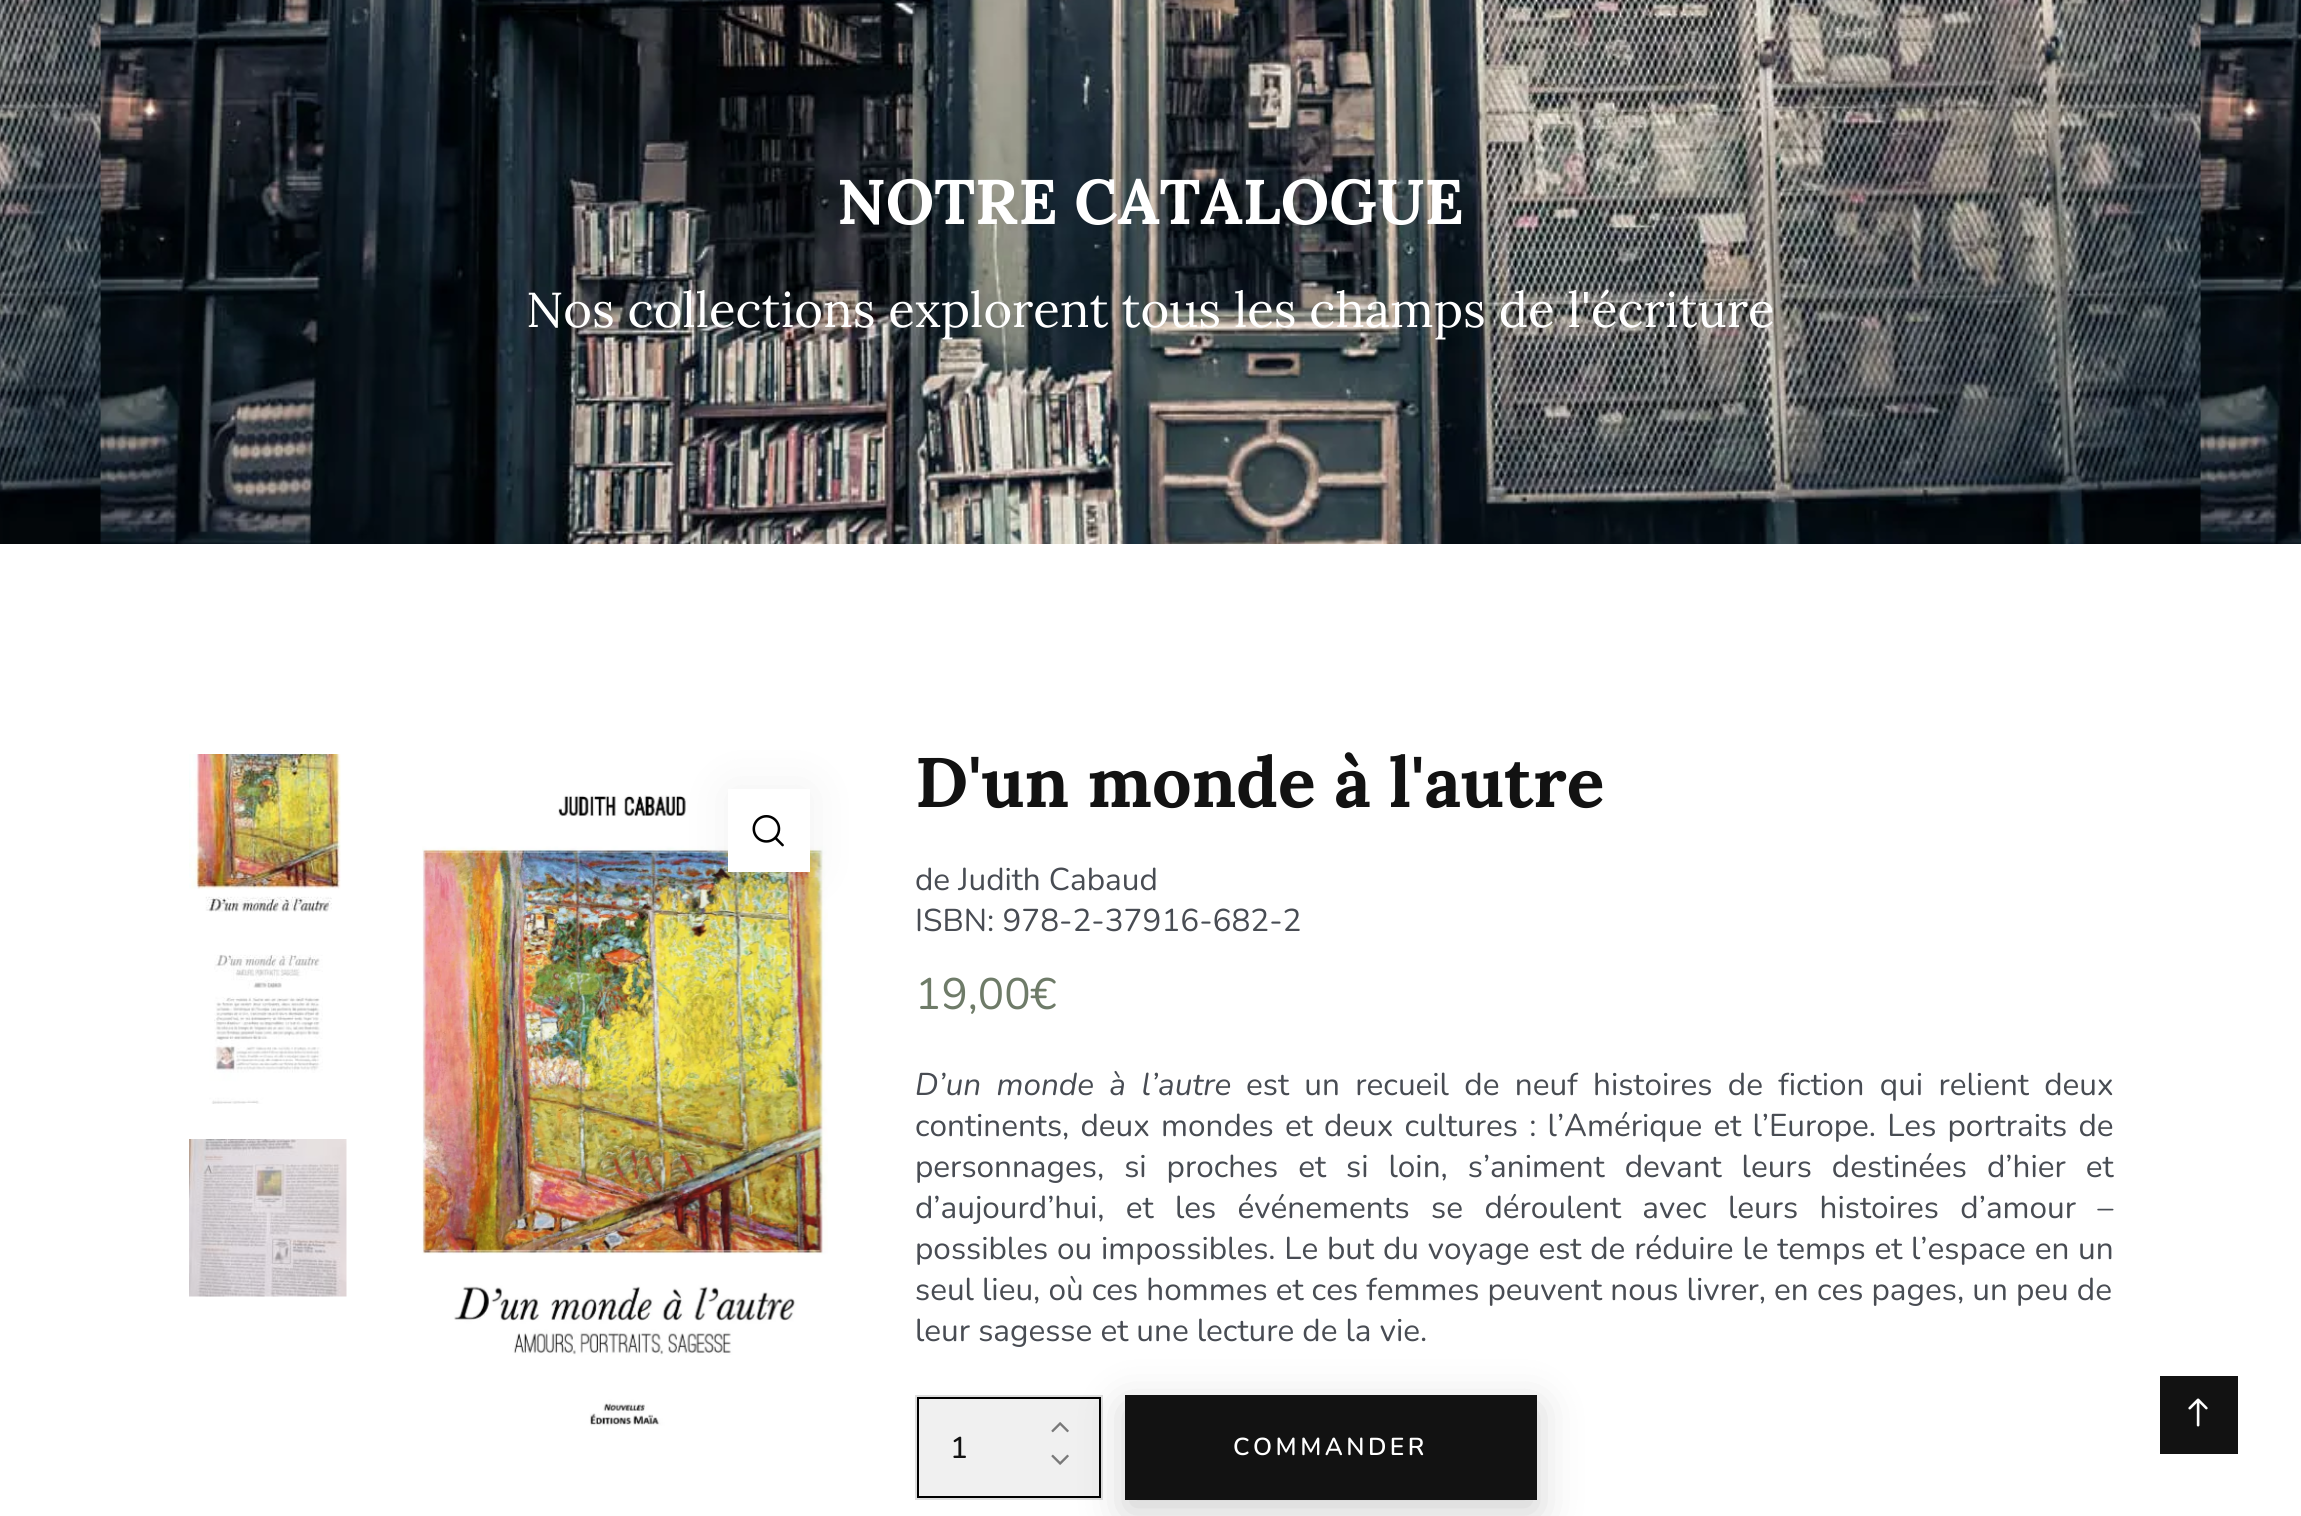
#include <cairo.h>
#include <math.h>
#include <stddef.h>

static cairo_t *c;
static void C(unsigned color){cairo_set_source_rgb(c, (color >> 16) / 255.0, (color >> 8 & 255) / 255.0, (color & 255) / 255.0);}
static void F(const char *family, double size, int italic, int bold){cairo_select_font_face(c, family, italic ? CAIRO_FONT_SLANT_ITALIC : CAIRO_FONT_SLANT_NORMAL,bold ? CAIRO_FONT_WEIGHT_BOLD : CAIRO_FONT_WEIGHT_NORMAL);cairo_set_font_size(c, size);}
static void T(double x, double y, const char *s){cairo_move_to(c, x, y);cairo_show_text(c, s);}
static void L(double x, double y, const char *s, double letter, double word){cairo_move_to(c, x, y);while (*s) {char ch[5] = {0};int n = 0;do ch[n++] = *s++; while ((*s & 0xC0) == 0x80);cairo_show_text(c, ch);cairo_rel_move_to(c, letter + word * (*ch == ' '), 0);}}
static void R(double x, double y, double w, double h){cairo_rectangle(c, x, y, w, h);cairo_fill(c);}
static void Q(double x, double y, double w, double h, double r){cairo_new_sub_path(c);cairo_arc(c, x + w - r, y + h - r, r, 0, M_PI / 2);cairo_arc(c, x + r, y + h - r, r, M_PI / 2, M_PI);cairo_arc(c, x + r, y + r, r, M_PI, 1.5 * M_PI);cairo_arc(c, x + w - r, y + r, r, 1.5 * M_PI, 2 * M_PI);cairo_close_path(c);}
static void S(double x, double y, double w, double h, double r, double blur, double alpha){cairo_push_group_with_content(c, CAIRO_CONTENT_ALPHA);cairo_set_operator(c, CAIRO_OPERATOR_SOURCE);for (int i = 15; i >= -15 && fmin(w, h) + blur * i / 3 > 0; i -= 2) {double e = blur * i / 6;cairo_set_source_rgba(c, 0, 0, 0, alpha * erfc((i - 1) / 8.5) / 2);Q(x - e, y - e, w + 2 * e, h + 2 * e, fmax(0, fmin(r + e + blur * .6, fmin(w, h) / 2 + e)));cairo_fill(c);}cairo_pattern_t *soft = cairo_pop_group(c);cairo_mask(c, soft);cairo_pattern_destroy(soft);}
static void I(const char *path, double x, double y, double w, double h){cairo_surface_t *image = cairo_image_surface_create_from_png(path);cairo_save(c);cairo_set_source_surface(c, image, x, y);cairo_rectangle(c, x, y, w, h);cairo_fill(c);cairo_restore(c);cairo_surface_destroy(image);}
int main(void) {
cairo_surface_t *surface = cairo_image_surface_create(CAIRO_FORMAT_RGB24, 2301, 1516);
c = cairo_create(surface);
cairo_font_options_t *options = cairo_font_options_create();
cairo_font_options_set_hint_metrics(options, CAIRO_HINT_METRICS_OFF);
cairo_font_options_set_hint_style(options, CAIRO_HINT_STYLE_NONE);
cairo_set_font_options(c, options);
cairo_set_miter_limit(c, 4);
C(0xffffff);
cairo_paint(c);
I("1.png",0,0,2301,544);
F("Lora",63,0,1);
C(0xffffff);
T(837,224,"NOTRE CATALOGUE");
F("Lora",49,0,0);
T(526,327,"Nos collections explorent tous les champs de l'écriture");
I("2.png",189,754,152,158);
I("3.png",209,954,114,150);
I("4.png",189,1139,158,158);
I("6.png",422,795,406,631);
C(0x000000);
S(728,789,82,83,0,26,.06);
C(0xffffff);
R(728,789,82,83);
I("5.png",752,815,32,32);
F("Lora",70,0,1);
C(0x121212);
T(915,807,"D'un monde à l'autre");
F("Nunito",31.5,0,0);
C(0x484c53);
T(915,890,"de Judith Cabaud");
T(915,931,"ISBN: 978-2-37916-682-2");
F("Nunito",44,0,0);
C(0x6e7b68);
T(915,1009,"19,00");
L(1030,1009,"€",3.5,0);
F("Nunito",31.5,1,0);
C(0x484c53);
L(915,1095,"D’un monde à l’autre",0,7.25);
F("Nunito",31.5,0,0);
L(1246,1095,"est un recueil de neuf histoires de fiction qui relient deux",0,7.25);
L(915,1136,"continents, deux mondes et deux cultures : l’Amérique et l’Europe. Les portraits de",0,3.1);
L(915,1177,"personnages, si proches et si loin, s’animent devant leurs destinées d’hier et",0,11.9);
L(915,1218,"d’aujourd’hui, et les événements se déroulent avec leurs histoires d’amour –",0,13.25);
L(915,1259,"possibles ou impossibles. Le but du voyage est de réduire le temps et l’espace en un",0,.7);
T(915,1300,"seul lieu, où ces hommes et ces femmes peuvent nous livrer, en ces pages, un peu de");
T(915,1341,"leur sagesse et une lecture de la vie.");
cairo_rectangle(c,916,1396,186,103);
C(0xdedede);
cairo_stroke(c);
C(0xf0f0f0);
cairo_rectangle(c,918,1398,182,99);
cairo_fill_preserve(c);
C(0x000000);
cairo_stroke(c);
C(0x121212);
S(1125,1407,412,105,0,22,.2);
I("7.png",1051,1422,18,11);
F("Nunito Medium",30,0,0);
C(0x121212);
T(950,1458,"1");
I("8.png",1051,1454,18,11);
R(1125,1395,412,105);
F("Nunito SemiBold",24.5,0,0);
C(0xffffff);
L(1233,1455,"COMMANDER",3.5,0);
C(0x121212);
R(2160,1376,78,78);
I("9.png",2188,1398,20,29);
cairo_surface_write_to_png(surface, "o.png");
cairo_font_options_destroy(options);
cairo_destroy(c);
cairo_surface_destroy(surface);
return 0;
}
